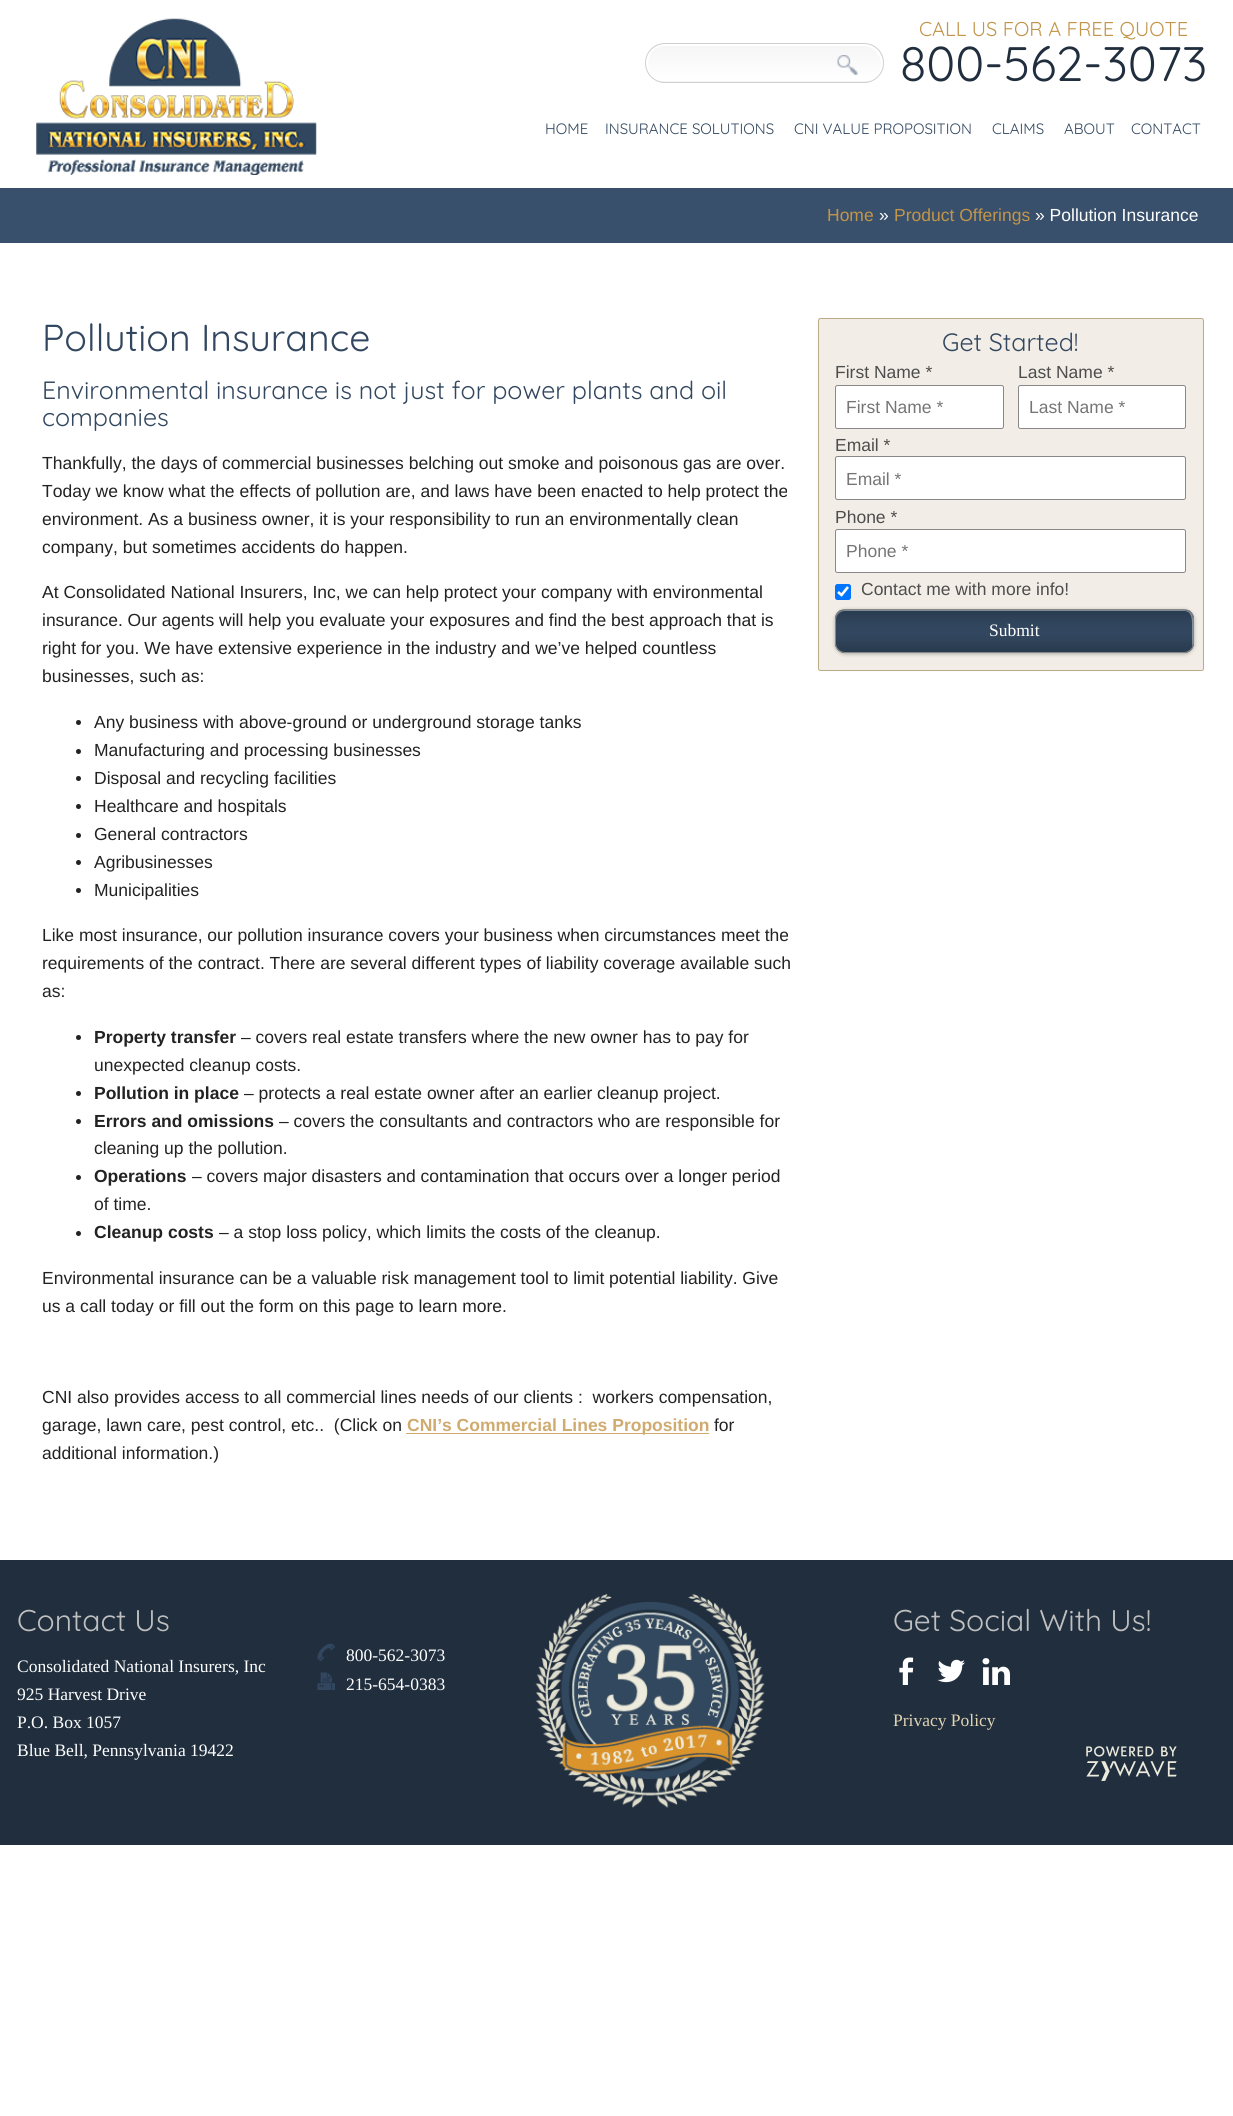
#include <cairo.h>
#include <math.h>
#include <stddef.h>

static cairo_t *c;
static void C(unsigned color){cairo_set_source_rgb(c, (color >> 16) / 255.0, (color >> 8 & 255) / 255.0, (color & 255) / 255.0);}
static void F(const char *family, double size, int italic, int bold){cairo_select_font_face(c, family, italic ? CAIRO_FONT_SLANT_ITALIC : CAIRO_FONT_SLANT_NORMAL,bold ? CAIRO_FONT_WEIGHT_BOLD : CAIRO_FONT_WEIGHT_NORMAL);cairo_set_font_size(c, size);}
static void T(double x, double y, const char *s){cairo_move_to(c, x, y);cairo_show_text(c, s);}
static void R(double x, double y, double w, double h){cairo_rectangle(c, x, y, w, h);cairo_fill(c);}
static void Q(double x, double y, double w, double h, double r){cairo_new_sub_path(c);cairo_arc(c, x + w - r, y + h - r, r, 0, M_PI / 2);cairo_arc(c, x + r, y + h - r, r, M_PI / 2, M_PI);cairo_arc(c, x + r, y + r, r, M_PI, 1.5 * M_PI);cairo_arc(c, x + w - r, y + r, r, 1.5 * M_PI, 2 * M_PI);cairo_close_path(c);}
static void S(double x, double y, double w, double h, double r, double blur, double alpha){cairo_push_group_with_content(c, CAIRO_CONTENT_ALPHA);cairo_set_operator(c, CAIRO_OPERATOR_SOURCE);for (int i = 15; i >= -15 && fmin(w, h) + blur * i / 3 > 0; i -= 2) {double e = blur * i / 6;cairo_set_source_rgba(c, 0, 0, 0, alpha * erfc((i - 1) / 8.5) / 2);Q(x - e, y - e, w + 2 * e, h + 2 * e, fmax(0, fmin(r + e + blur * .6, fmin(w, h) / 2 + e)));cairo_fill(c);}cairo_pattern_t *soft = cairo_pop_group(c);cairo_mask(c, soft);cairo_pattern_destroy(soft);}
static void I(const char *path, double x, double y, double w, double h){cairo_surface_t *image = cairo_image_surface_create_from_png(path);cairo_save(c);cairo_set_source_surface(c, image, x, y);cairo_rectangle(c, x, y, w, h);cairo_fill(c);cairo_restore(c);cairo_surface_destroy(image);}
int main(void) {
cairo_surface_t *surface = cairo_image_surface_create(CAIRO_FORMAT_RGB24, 1233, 2116);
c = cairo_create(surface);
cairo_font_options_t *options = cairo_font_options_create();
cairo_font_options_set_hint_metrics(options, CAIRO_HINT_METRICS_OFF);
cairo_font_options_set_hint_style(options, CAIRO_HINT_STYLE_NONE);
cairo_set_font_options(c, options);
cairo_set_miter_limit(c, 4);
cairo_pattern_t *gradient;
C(0xffffff);
cairo_paint(c);
I("1.png",36,18,281,157);
cairo_save(c);
Q(645,43,239,40,20);
cairo_clip(c);
gradient = cairo_pattern_create_linear(764,44,764,81);
cairo_pattern_add_color_stop_rgba(gradient,0,0.961,0.961,0.961,1);
cairo_pattern_add_color_stop_rgba(gradient,1,1,1,1,1);
cairo_set_source(c,gradient);
cairo_pattern_destroy(gradient);
R(645,44,239,37);
gradient = cairo_pattern_create_linear(764,81,764,119);
cairo_pattern_add_color_stop_rgba(gradient,0,0.961,0.961,0.961,1);
cairo_pattern_add_color_stop_rgba(gradient,1,1,1,1,1);
cairo_set_source(c,gradient);
cairo_pattern_destroy(gradient);
R(656,81,217,2);
cairo_restore(c);
C(0xffffff);
cairo_new_path(c);
cairo_move_to(c,665,46);
cairo_line_to(c,864,46);
cairo_curve_to(c,873,46,881,54,881,64);
cairo_curve_to(c,881,73,873,81,864,81);
cairo_curve_to(c,889,81,889,44,864,44);
cairo_line_to(c,698,44);
cairo_curve_to(c,685,44,651,37,646,59);
cairo_curve_to(c,644,71,653,81,665,81);
cairo_curve_to(c,642,81,643,46,665,46);
cairo_close_path(c);
cairo_fill(c);
Q(645.5,43.5,238,39,19.5);
C(0xd0d0d0);
cairo_set_line_width(c,1);
cairo_stroke(c);
I("2.png",837,55,21,20);
F("Quicksand Light",20,0,0);
C(0xc2954a);
T(919,36,"CALL US FOR A FREE QUOTE");
F("Quicksand Light",48.75,0,0);
C(0x202e3e);
T(900,81,"800-562-3073");
F("Quicksand Light",15,0,0);
C(0x32475f);
T(545,134,"HOME");
T(605,134,"INSURANCE SOLUTIONS");
T(794,134,"CNI VALUE PROPOSITION");
T(992,134,"CLAIMS");
T(1064,134,"ABOUT");
T(1131,134,"CONTACT");
C(0x38506b);
R(0,188,1233,55);
F("Liberation Sans",17.5,0,0);
C(0xc2954a);
T(827,221,"Home");
C(0xffffff);
T(879,221,"»");
C(0xc2954a);
T(894,221,"Product Offerings");
C(0xffffff);
T(1035,221,"» Pollution Insurance");
F("Quicksand Light",37.5,0,0);
C(0x32475f);
T(42,351,"Pollution Insurance");
F("Quicksand Light",25,0,0);
T(42,399,"Environmental insurance is not just for power plants and oil");
T(42,426,"companies");
F("Liberation Sans",17.5,0,0);
C(0x222222);
T(42,469,"Thankfully, the days of commercial businesses belching out smoke and poisonous gas are over.");
T(42,497,"Today we know what the effects of pollution are, and laws have been enacted to help protect the");
T(42,525,"environment. As a business owner, it is your responsibility to run an environmentally clean");
T(42,553,"company, but sometimes accidents do happen.");
T(42,598,"At Consolidated National Insurers, Inc, we can help protect your company with environmental");
T(42,626,"insurance. Our agents will help you evaluate your exposures and find the best approach that is");
T(42,654,"right for you. We have extensive experience in the industry and we’ve helped countless");
T(42,682,"businesses, such as:");
cairo_new_path(c);
cairo_arc(c,78.5,722.5,2.5,0,2 * M_PI);
cairo_fill(c);
T(94,728,"Any business with above-ground or underground storage tanks");
cairo_new_path(c);
cairo_arc(c,78.5,751.5,2.5,0,2 * M_PI);
cairo_fill(c);
T(94,756,"Manufacturing and processing businesses");
cairo_new_path(c);
cairo_arc(c,78.5,778.5,2.5,0,2 * M_PI);
cairo_fill(c);
T(94,784,"Disposal and recycling facilities");
cairo_new_path(c);
cairo_arc(c,78.5,806.5,2.5,0,2 * M_PI);
cairo_fill(c);
T(94,812,"Healthcare and hospitals");
cairo_new_path(c);
cairo_arc(c,78.5,835.5,2.5,0,2 * M_PI);
cairo_fill(c);
T(94,840,"General contractors");
cairo_new_path(c);
cairo_arc(c,78.5,862.5,2.5,0,2 * M_PI);
cairo_fill(c);
T(94,868,"Agribusinesses");
cairo_new_path(c);
cairo_arc(c,78.5,890.5,2.5,0,2 * M_PI);
cairo_fill(c);
T(94,896,"Municipalities");
T(42,941,"Like most insurance, our pollution insurance covers your business when circumstances meet the");
T(42,969,"requirements of the contract. There are several different types of liability coverage available such");
T(42,997,"as:");
cairo_new_path(c);
cairo_arc(c,78.5,1037.5,2.5,0,2 * M_PI);
cairo_fill(c);
F("Liberation Sans",17.5,0,1);
T(94,1043,"Property transfer");
F("Liberation Sans",17.5,0,0);
T(241,1043,"– covers real estate transfers where the new owner has to pay for");
T(94,1071,"unexpected cleanup costs.");
cairo_new_path(c);
cairo_arc(c,78.5,1093.5,2.5,0,2 * M_PI);
cairo_fill(c);
F("Liberation Sans",17.5,0,1);
T(94,1099,"Pollution in place");
F("Liberation Sans",17.5,0,0);
T(244,1099,"– protects a real estate owner after an earlier cleanup project.");
cairo_new_path(c);
cairo_arc(c,78.5,1121.5,2.5,0,2 * M_PI);
cairo_fill(c);
F("Liberation Sans",17.5,0,1);
T(94,1127,"Errors and omissions");
F("Liberation Sans",17.5,0,0);
T(279,1127,"– covers the consultants and contractors who are responsible for");
T(94,1154,"cleaning up the pollution.");
cairo_new_path(c);
cairo_arc(c,78.5,1177.5,2.5,0,2 * M_PI);
cairo_fill(c);
F("Liberation Sans",17.5,0,1);
T(94,1182,"Operations");
F("Liberation Sans",17.5,0,0);
T(192,1182,"– covers major disasters and contamination that occurs over a longer period");
T(94,1210,"of time.");
cairo_new_path(c);
cairo_arc(c,78.5,1233.5,2.5,0,2 * M_PI);
cairo_fill(c);
F("Liberation Sans",17.5,0,1);
T(94,1238,"Cleanup costs");
F("Liberation Sans",17.5,0,0);
T(219,1238,"– a stop loss policy, which limits the costs of the cleanup.");
T(42,1284,"Environmental insurance can be a valuable risk management tool to limit potential liability. Give");
T(42,1312,"us a call today or fill out the form on this page to learn more.");
T(42,1403,"CNI also provides access to all commercial lines needs of our clients :  workers compensation,");
T(42,1431,"garage, lawn care, pest control, etc..  (Click on");
C(0xcfab70);
R(406,1433,303,1);
F("Liberation Sans",17.5,0,1);
T(407,1431,"CNI’s Commercial Lines Proposition");
F("Liberation Sans",17.5,0,0);
C(0x222222);
T(714,1431,"for");
T(42,1459,"additional information.)");
C(0xf2eee7);
Q(818.5,318.5,385,352,2);
cairo_fill_preserve(c);
C(0xbca986);
cairo_stroke(c);
F("Quicksand Light",25,0,0);
C(0x32475f);
T(942,351,"Get Started!");
F("Liberation Sans",17.5,0,0);
C(0x4d4d4d);
T(835,378,"First Name *");
C(0xffffff);
Q(835.5,385.5,168,43,2);
cairo_fill_preserve(c);
C(0x888888);
cairo_stroke(c);
C(0x757575);
T(846,413,"First Name *");
C(0x4d4d4d);
T(1018,378,"Last Name *");
C(0xffffff);
Q(1018.5,385.5,167,43,2);
cairo_fill_preserve(c);
C(0x888888);
cairo_stroke(c);
C(0x757575);
T(1029,413,"Last Name *");
C(0x4d4d4d);
T(835,451,"Email *");
C(0xffffff);
Q(835.5,456.5,350,43,2);
cairo_fill_preserve(c);
C(0x888888);
cairo_stroke(c);
C(0x757575);
T(846,485,"Email *");
C(0x4d4d4d);
T(835,523,"Phone *");
C(0xffffff);
Q(835.5,529.5,350,43,2);
cairo_fill_preserve(c);
C(0x888888);
cairo_stroke(c);
C(0x757575);
T(846,557,"Phone *");
C(0x0075ff);
Q(835,584,16,16,2.5);
cairo_fill(c);
cairo_new_path(c);
cairo_move_to(c,838,592);
cairo_line_to(c,841.5,595);
cairo_line_to(c,848,587);
C(0xffffff);
cairo_set_line_width(c,2.6);
cairo_stroke(c);
C(0x4d4d4d);
T(861,595,"Contact me with more info!");
C(0x000000);
S(835,610,359,44,10,2,.3);
cairo_save(c);
Q(835,609,359,44,10);
cairo_clip(c);
gradient = cairo_pattern_create_linear(1014,610,1014,651);
cairo_pattern_add_color_stop_rgba(gradient,0,0.161,0.231,0.306,1);
cairo_pattern_add_color_stop_rgba(gradient,.4,0.196,0.278,0.373,1);
cairo_pattern_add_color_stop_rgba(gradient,.6,0.196,0.278,0.373,1);
cairo_pattern_add_color_stop_rgba(gradient,1,0.161,0.231,0.306,1);
cairo_set_source(c,gradient);
cairo_pattern_destroy(gradient);
R(835,610,359,41);
gradient = cairo_pattern_create_linear(1014,651,1014,693);
cairo_pattern_add_color_stop_rgba(gradient,0,0.161,0.231,0.306,1);
cairo_pattern_add_color_stop_rgba(gradient,.4,0.196,0.278,0.373,1);
cairo_pattern_add_color_stop_rgba(gradient,.6,0.196,0.278,0.373,1);
cairo_pattern_add_color_stop_rgba(gradient,1,0.161,0.231,0.306,1);
cairo_set_source(c,gradient);
cairo_pattern_destroy(gradient);
R(835,651,359,2);
cairo_restore(c);
cairo_set_source_rgba(c,1,1,1,0.4);
cairo_new_path(c);
cairo_move_to(c,845,611);
cairo_line_to(c,1184,611);
cairo_curve_to(c,1193,611,1192,622,1192,628);
cairo_line_to(c,1192,647);
cairo_curve_to(c,1193,645,1193,644,1193,642);
cairo_line_to(c,1193,619);
cairo_curve_to(c,1193,614,1189,610,1184,610);
cairo_line_to(c,845,610);
cairo_curve_to(c,840,610,836,614,836,619);
cairo_line_to(c,836,620);
cairo_curve_to(c,836,615,840,611,845,611);
cairo_close_path(c);
cairo_fill(c);
Q(835.5,609.5,358,43,9.5);
C(0x888888);
cairo_set_line_width(c,1);
cairo_stroke(c);
F("Liberation Serif",17.5,0,0);
C(0xffffff);
T(989,636,"Submit");
C(0x202e3e);
R(0,1560,1233,285);
F("Quicksand Light",30,0,0);
C(0xbfbfbf);
T(17,1631,"Contact Us");
F("Liberation Serif",17.5,0,0);
C(0xffffff);
T(17,1672,"Consolidated National Insurers, Inc");
T(17,1700,"925 Harvest Drive");
T(17,1728,"P.O. Box 1057");
T(17,1756,"Blue Bell, Pennsylvania 19422");
I("3.png",317,1643,18,19);
T(346,1661,"800-562-3073");
I("4.png",317,1672,18,18);
T(346,1690,"215-654-0383");
I("5.png",535,1593,230,215);
F("Quicksand Light",30,0,0);
C(0xbfbfbf);
T(893,1631,"Get Social With Us!");
I("6.png",899,1657,15,28);
I("7.png",937,1659,28,24);
I("8.png",982,1658,28,27);
F("Liberation Serif",17.5,0,0);
C(0xe1d4b3);
T(893,1726,"Privacy Policy");
I("9.png",1086,1746,91,35);
cairo_surface_write_to_png(surface, "o.png");
cairo_font_options_destroy(options);
cairo_destroy(c);
cairo_surface_destroy(surface);
return 0;
}
